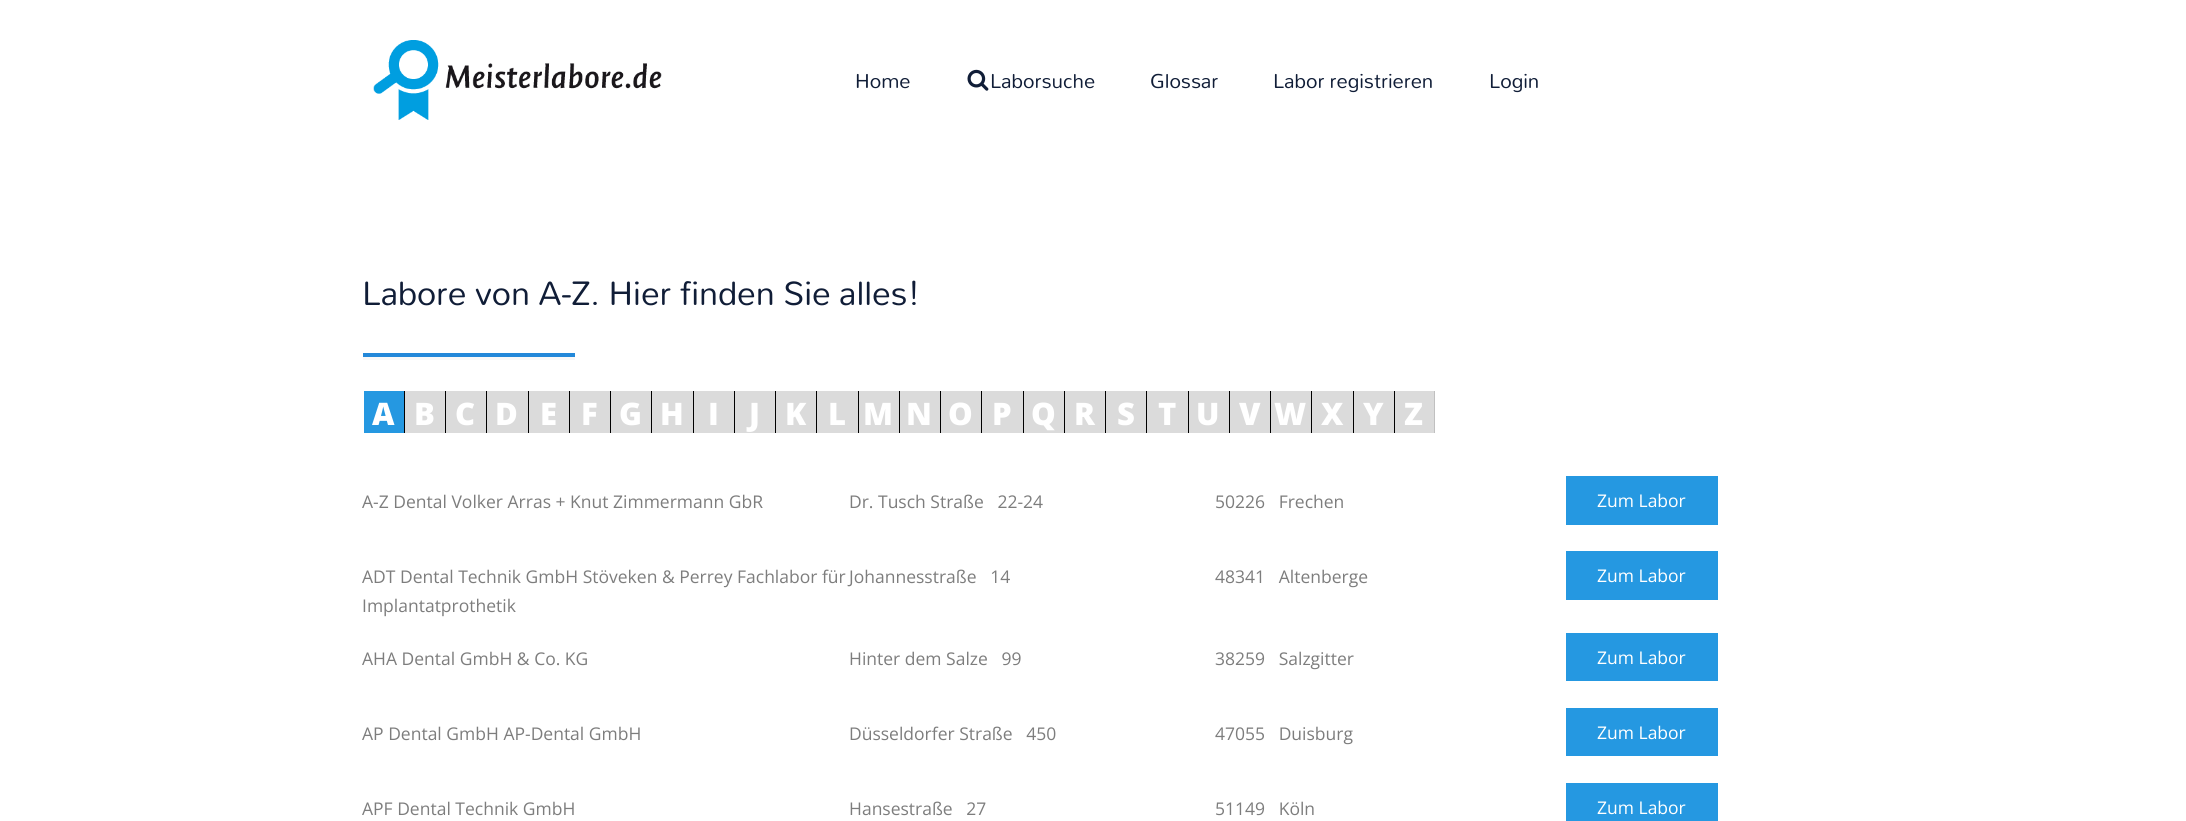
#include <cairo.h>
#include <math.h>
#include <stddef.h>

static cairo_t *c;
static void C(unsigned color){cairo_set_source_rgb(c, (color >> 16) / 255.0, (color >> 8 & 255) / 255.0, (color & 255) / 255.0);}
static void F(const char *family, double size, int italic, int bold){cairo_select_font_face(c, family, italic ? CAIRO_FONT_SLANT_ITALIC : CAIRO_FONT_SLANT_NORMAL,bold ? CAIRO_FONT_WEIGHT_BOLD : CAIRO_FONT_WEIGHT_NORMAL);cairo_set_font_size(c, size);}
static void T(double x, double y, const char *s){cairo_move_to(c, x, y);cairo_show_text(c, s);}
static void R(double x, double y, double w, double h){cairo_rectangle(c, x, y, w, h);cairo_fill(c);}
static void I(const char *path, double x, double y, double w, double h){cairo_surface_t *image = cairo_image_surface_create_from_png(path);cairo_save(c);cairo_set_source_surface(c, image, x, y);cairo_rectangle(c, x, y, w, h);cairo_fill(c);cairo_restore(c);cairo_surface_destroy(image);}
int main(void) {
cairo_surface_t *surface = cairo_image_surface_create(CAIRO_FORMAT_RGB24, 2186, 821);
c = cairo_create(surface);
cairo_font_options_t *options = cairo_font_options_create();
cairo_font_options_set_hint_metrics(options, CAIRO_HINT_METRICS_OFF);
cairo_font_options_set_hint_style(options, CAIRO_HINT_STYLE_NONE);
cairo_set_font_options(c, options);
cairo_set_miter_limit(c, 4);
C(0xffffff);
cairo_paint(c);
I("1.png",373,40,289,80);
F("Mallanna",22.5,0,0);
C(0x101d37);
T(855,88,"Home");
I("2.png",967,69,22,22);
T(990,88,"Laborsuche");
T(1150,88,"Glossar");
T(1273,88,"Labor registrieren");
T(1489,88,"Login");
F("Mallanna",37.5,0,0);
T(362,305,"Labore von A-Z. Hier finden Sie alles!");
C(0xf8f8f8);
R(363,357,212,3);
C(0x2388d9);
R(363,353,212,4);
C(0x2598e1);
R(364,391,40,42);
F("Open Sans ExtraBold",31,0,0);
C(0xffffff);
T(372,425,"A");
C(0xdbdbdb);
R(405,391,40,42);
C(0x000000);
R(404,391,1,42);
C(0xffffff);
T(414,425,"B");
C(0xdbdbdb);
R(446,391,40,42);
C(0x000000);
R(445,391,1,42);
C(0xffffff);
T(455,425,"C");
C(0xdbdbdb);
R(487,391,41,42);
C(0x000000);
R(486,391,1,42);
C(0xffffff);
T(495,425,"D");
C(0xdbdbdb);
R(529,391,40,42);
C(0x000000);
R(528,391,1,42);
C(0xffffff);
T(540,425,"E");
C(0xdbdbdb);
R(570,391,40,42);
C(0x000000);
R(569,391,1,42);
C(0xffffff);
T(581,425,"F");
C(0xdbdbdb);
R(611,391,40,42);
C(0x000000);
R(610,391,1,42);
C(0xffffff);
T(619,425,"G");
C(0xdbdbdb);
R(652,391,41,42);
C(0x000000);
R(651,391,1,42);
C(0xffffff);
T(660,425,"H");
C(0xdbdbdb);
R(694,391,40,42);
C(0x000000);
R(693,391,1,42);
C(0xffffff);
T(708,425,"I");
C(0xdbdbdb);
R(735,391,40,42);
C(0x000000);
R(734,391,1,42);
C(0xffffff);
T(749,425,"J");
C(0xdbdbdb);
R(776,391,40,42);
C(0x000000);
R(775,391,1,42);
C(0xffffff);
T(785,425,"K");
C(0xdbdbdb);
R(817,391,41,42);
C(0x000000);
R(816,391,1,42);
C(0xffffff);
T(828,425,"L");
C(0xdbdbdb);
R(859,391,40,42);
C(0x000000);
R(858,391,1,42);
C(0xffffff);
T(863,425,"M");
C(0xdbdbdb);
R(900,391,40,42);
C(0x000000);
R(899,391,1,42);
C(0xffffff);
T(906,425,"N");
C(0xdbdbdb);
R(941,391,40,42);
C(0x000000);
R(940,391,1,42);
C(0xffffff);
T(948,425,"O");
C(0xdbdbdb);
R(982,391,41,42);
C(0x000000);
R(981,391,1,42);
C(0xffffff);
T(992,425,"P");
C(0xdbdbdb);
R(1024,391,40,42);
C(0x000000);
R(1023,391,1,42);
C(0xffffff);
T(1031,425,"Q");
C(0xdbdbdb);
R(1065,391,40,42);
C(0x000000);
R(1064,391,1,42);
C(0xffffff);
T(1074,425,"R");
C(0xdbdbdb);
R(1106,391,40,42);
C(0x000000);
R(1105,391,1,42);
C(0xffffff);
T(1117,425,"S");
C(0xdbdbdb);
R(1147,391,41,42);
C(0x000000);
R(1146,391,1,42);
C(0xffffff);
T(1158,425,"T");
C(0xdbdbdb);
R(1189,391,40,42);
C(0x000000);
R(1188,391,1,42);
C(0xffffff);
T(1196,425,"U");
C(0xdbdbdb);
R(1230,391,40,42);
C(0x000000);
R(1229,391,1,42);
C(0xffffff);
T(1239,425,"V");
C(0xdbdbdb);
R(1271,391,40,42);
C(0x000000);
R(1270,391,1,42);
C(0xffffff);
T(1274,425,"W");
C(0xdbdbdb);
R(1312,391,41,42);
C(0x000000);
R(1311,391,1,42);
C(0xffffff);
T(1321,425,"X");
C(0xdbdbdb);
R(1354,391,40,42);
C(0x000000);
R(1353,391,1,42);
C(0xffffff);
T(1363,425,"Y");
C(0xdbdbdb);
R(1395,391,39,42);
C(0xc0c0c0);
R(1434,391,1,42);
C(0x000000);
R(1394,391,1,42);
C(0xffffff);
T(1404,425,"Z");
F("Open Sans",17.5,0,0);
C(0x7d7d7d);
T(362,508,"A-Z Dental Volker Arras + Knut Zimmermann GbR");
T(849,508,"Dr. Tusch Straße   22-24");
T(1215,508,"50226   Frechen");
C(0x2598e1);
R(1566,476,152,49);
C(0xffffff);
T(1597,507,"Zum Labor");
C(0x7d7d7d);
T(362,583,"ADT Dental Technik GmbH Stöveken & Perrey Fachlabor für");
T(362,612,"Implantatprothetik");
T(849,583,"Johannesstraße   14");
T(1215,583,"48341   Altenberge");
C(0x2598e1);
R(1566,551,152,49);
C(0xffffff);
T(1597,582,"Zum Labor");
C(0x7d7d7d);
T(362,665,"AHA Dental GmbH & Co. KG");
T(849,665,"Hinter dem Salze   99");
T(1215,665,"38259   Salzgitter");
C(0x2598e1);
R(1566,633,152,48);
C(0xffffff);
T(1597,664,"Zum Labor");
C(0x7d7d7d);
T(362,740,"AP Dental GmbH AP-Dental GmbH");
T(849,740,"Düsseldorfer Straße   450");
T(1215,740,"47055   Duisburg");
C(0x2598e1);
R(1566,708,152,48);
C(0xffffff);
T(1597,739,"Zum Labor");
C(0x7d7d7d);
T(362,815,"APF Dental Technik GmbH");
T(849,815,"Hansestraße   27");
T(1215,815,"51149   Köln");
C(0x2598e1);
R(1566,783,152,38);
C(0xffffff);
T(1597,814,"Zum Labor");
cairo_surface_write_to_png(surface, "o.png");
cairo_font_options_destroy(options);
cairo_destroy(c);
cairo_surface_destroy(surface);
return 0;
}
